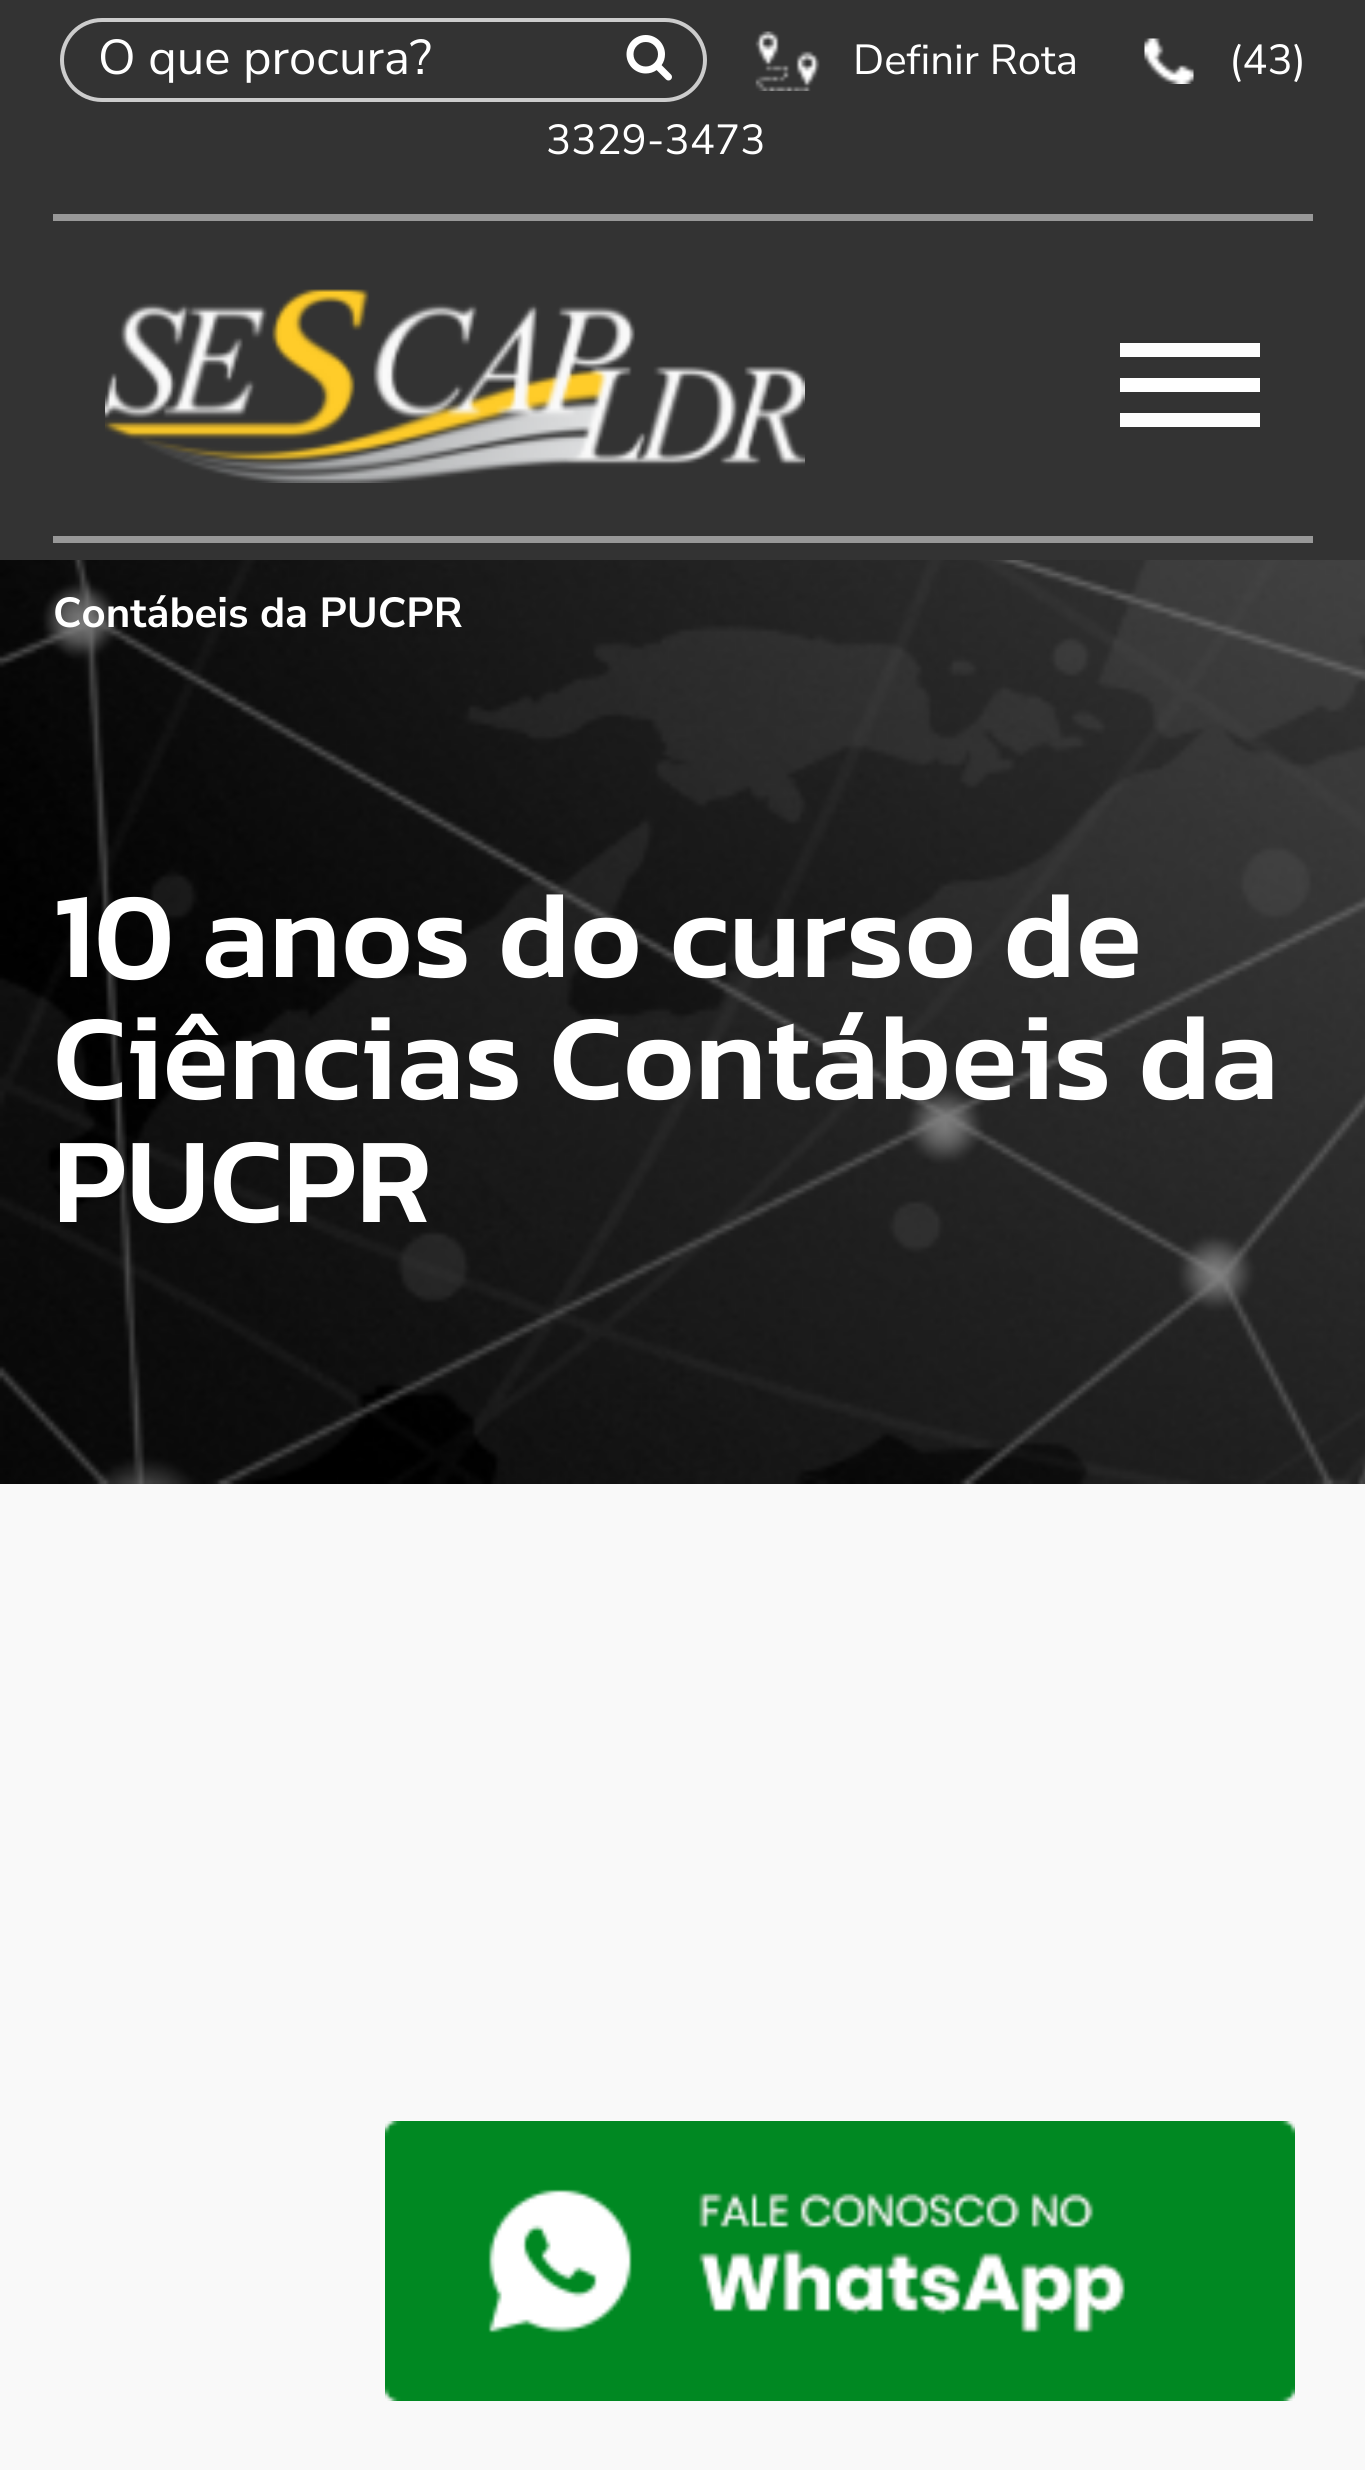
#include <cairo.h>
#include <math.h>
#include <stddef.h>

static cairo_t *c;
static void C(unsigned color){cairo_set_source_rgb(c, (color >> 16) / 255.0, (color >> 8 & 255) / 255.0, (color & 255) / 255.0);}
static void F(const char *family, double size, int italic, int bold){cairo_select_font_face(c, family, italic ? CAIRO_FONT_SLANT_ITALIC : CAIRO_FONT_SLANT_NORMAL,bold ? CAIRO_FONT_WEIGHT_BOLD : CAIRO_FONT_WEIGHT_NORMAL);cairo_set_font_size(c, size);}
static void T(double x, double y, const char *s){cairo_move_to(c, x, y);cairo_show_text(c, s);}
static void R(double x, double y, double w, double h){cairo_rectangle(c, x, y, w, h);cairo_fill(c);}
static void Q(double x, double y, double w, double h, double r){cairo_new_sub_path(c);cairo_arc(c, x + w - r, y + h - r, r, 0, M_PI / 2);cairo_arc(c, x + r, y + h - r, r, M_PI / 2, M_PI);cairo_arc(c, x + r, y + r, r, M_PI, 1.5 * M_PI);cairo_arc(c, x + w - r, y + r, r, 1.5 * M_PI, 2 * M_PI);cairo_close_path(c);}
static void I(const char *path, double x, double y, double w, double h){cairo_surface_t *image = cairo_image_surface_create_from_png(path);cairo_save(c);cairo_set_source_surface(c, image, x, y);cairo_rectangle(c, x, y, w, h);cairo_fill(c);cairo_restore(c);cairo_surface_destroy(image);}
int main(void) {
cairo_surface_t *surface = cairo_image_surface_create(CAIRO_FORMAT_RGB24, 1365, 2470);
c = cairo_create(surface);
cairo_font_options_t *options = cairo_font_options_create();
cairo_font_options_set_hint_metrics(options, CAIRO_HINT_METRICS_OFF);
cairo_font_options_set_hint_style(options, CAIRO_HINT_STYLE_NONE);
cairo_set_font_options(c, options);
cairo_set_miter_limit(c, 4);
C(0xffffff);
cairo_paint(c);
C(0x333333);
R(0,0,1365,560);
Q(62,20,643,80,40);
C(0xcccccc);
cairo_set_line_width(c,4);
cairo_stroke(c);
F("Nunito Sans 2 ExtraLight",49,0,0);
C(0xffffff);
T(98,74,"O que procura?");
I("1.png",626,35,46,46);
I("2.png",755,31,65,60);
F("Nunito Sans 2 ExtraLight",42,0,0);
T(853,74,"Definir Rota");
I("3.png",1144,38,50,46);
T(1229,74,"(43)");
T(546,154,"3329-3473");
C(0x989898);
R(53,214,1260,7);
I("4.png",105,289,700,194);
C(0xffffff);
R(1120,343,140,14);
R(1120,378,140,14);
R(1120,413,140,14);
C(0x989898);
R(53,536,1260,7);
I("5.png",0,560,1365,924);
F("Nunito Sans ExtraLight",42,0,0);
C(0xffffff);
T(53,627,"Contábeis da PUCPR");
F("Kanit Medium",122.5,0,0);
T(53,977,"10 anos do curso de");
T(53,1099,"Ciências Contábeis da");
T(53,1222,"PUCPR");
C(0xf9f9f9);
R(0,1484,1365,986);
I("6.png",385,2121,910,280);
cairo_surface_write_to_png(surface, "o.png");
cairo_font_options_destroy(options);
cairo_destroy(c);
cairo_surface_destroy(surface);
return 0;
}
